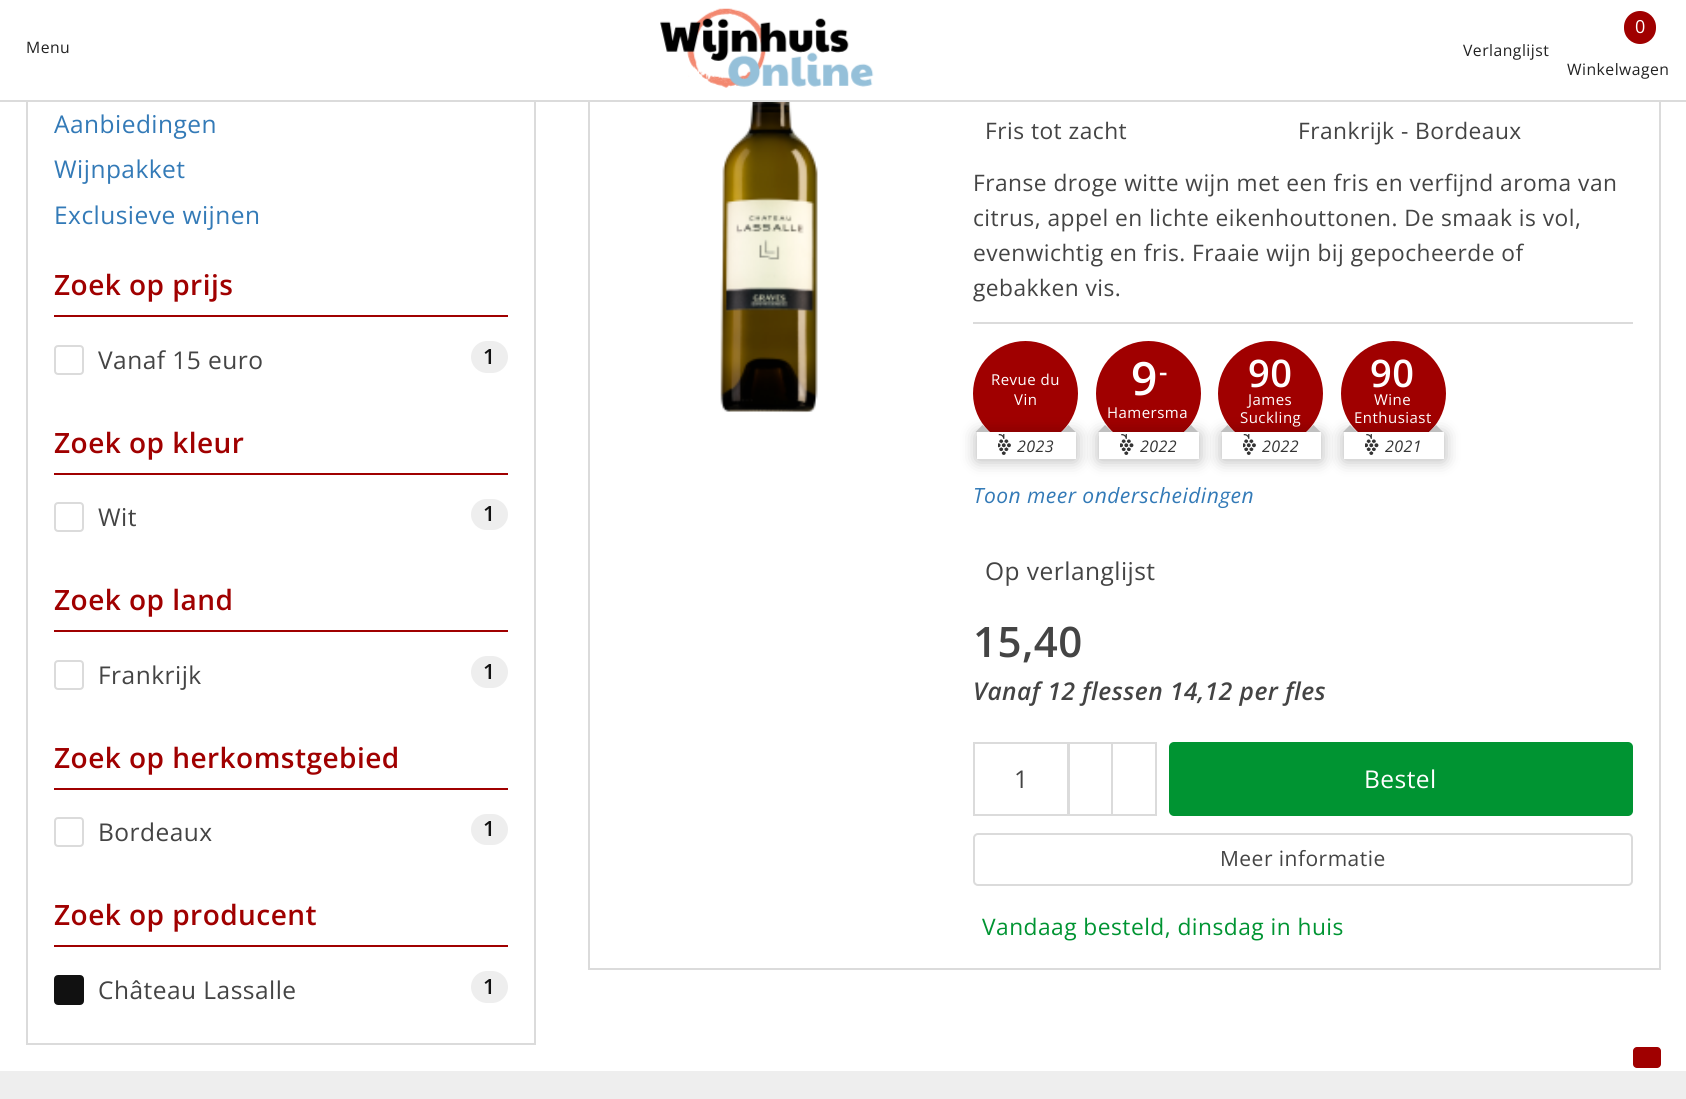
#include <cairo.h>
#include <math.h>
#include <stddef.h>

static cairo_t *c;
static void C(unsigned color){cairo_set_source_rgb(c, (color >> 16) / 255.0, (color >> 8 & 255) / 255.0, (color & 255) / 255.0);}
static void F(const char *family, double size, int italic, int bold){cairo_select_font_face(c, family, italic ? CAIRO_FONT_SLANT_ITALIC : CAIRO_FONT_SLANT_NORMAL,bold ? CAIRO_FONT_WEIGHT_BOLD : CAIRO_FONT_WEIGHT_NORMAL);cairo_set_font_size(c, size);}
static void L(double x, double y, const char *s, double letter, double word){cairo_move_to(c, x, y);while (*s) {char ch[5] = {0};int n = 0;do ch[n++] = *s++; while ((*s & 0xC0) == 0x80);cairo_show_text(c, ch);cairo_rel_move_to(c, letter + word * (*ch == ' '), 0);}}
static void R(double x, double y, double w, double h){cairo_rectangle(c, x, y, w, h);cairo_fill(c);}
static void Q(double x, double y, double w, double h, double r){cairo_new_sub_path(c);cairo_arc(c, x + w - r, y + h - r, r, 0, M_PI / 2);cairo_arc(c, x + r, y + h - r, r, M_PI / 2, M_PI);cairo_arc(c, x + r, y + r, r, M_PI, 1.5 * M_PI);cairo_arc(c, x + w - r, y + r, r, 1.5 * M_PI, 2 * M_PI);cairo_close_path(c);}
static void S(double x, double y, double w, double h, double r, double blur, double alpha){cairo_push_group_with_content(c, CAIRO_CONTENT_ALPHA);cairo_set_operator(c, CAIRO_OPERATOR_SOURCE);for (int i = 15; i >= -15 && fmin(w, h) + blur * i / 3 > 0; i -= 2) {double e = blur * i / 6;cairo_set_source_rgba(c, 0, 0, 0, alpha * erfc((i - 1) / 8.5) / 2);Q(x - e, y - e, w + 2 * e, h + 2 * e, fmax(0, fmin(r + e + blur * .6, fmin(w, h) / 2 + e)));cairo_fill(c);}cairo_pattern_t *soft = cairo_pop_group(c);cairo_mask(c, soft);cairo_pattern_destroy(soft);}
static void I(const char *path, double x, double y, double w, double h){cairo_surface_t *image = cairo_image_surface_create_from_png(path);cairo_save(c);cairo_set_source_surface(c, image, x, y);cairo_rectangle(c, x, y, w, h);cairo_fill(c);cairo_restore(c);cairo_surface_destroy(image);}
int main(void) {
cairo_surface_t *surface = cairo_image_surface_create(CAIRO_FORMAT_RGB24, 1686, 1099);
c = cairo_create(surface);
cairo_font_options_t *options = cairo_font_options_create();
cairo_font_options_set_hint_metrics(options, CAIRO_HINT_METRICS_OFF);
cairo_font_options_set_hint_style(options, CAIRO_HINT_STYLE_NONE);
cairo_set_font_options(c, options);
cairo_set_miter_limit(c, 4);
C(0xffffff);
cairo_paint(c);
cairo_rectangle(c,27,-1,508,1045);
C(0xdbdbdb);
cairo_stroke(c);
cairo_rectangle(c,589,-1,1071,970);
cairo_stroke(c);
C(0xffffff);
R(26,0,1635,100);
C(0xdbdbdb);
R(0,100,1686,2);
F("Open Sans",15.75,0,0);
C(0x222222);
L(26,53,"Menu",.47,0);
I("1.png",660,8,214,80);
L(1463,56,"Verlanglijst",.47,0);
C(0xa00000);
Q(1624,11,32,33,16);
cairo_fill(c);
F("Open Sans",18,0,0);
C(0xffffff);
L(1635,33,"0",.47,0);
F("Open Sans",15.75,0,0);
C(0x222222);
L(1567,75,"Winkelwagen",.47,0);
F("Open Sans",24.5,0,0);
C(0x337ab7);
L(54,133,"Aanbiedingen",.47,0);
L(54,178,"Wijnpakket",.47,0);
L(54,224,"Exclusieve wijnen",.47,0);
C(0xa00000);
R(54,315,454,2);
F("Open Sans SemiBold",28,0,0);
L(54,295,"Zoek op prijs",.47,0);
Q(55,346,28,28,3);
C(0xdbdbdb);
cairo_stroke(c);
F("Open Sans",24.5,0,0);
C(0x444444);
L(98,369,"Vanaf 15 euro",.47,0);
C(0xeeeeee);
Q(471,341,37,32,16);
cairo_fill(c);
F("Open Sans SemiBold",21,0,0);
C(0x111111);
L(483,364,"1",.47,0);
C(0xa00000);
R(54,473,454,2);
F("Open Sans SemiBold",28,0,0);
L(54,453,"Zoek op kleur",.47,0);
Q(55,503,28,28,3);
C(0xdbdbdb);
cairo_stroke(c);
F("Open Sans",24.5,0,0);
C(0x444444);
L(98,526,"Wit",.47,0);
C(0xeeeeee);
Q(471,499,37,31,15.5);
cairo_fill(c);
F("Open Sans SemiBold",21,0,0);
C(0x111111);
L(483,521,"1",.47,0);
C(0xa00000);
R(54,630,454,2);
F("Open Sans SemiBold",28,0,0);
L(54,610,"Zoek op land",.47,0);
Q(55,661,28,28,3);
C(0xdbdbdb);
cairo_stroke(c);
F("Open Sans",24.5,0,0);
C(0x444444);
L(98,684,"Frankrijk",.47,0);
C(0xeeeeee);
Q(471,656,37,32,16);
cairo_fill(c);
F("Open Sans SemiBold",21,0,0);
C(0x111111);
L(483,679,"1",.47,0);
C(0xa00000);
R(54,788,454,2);
F("Open Sans SemiBold",28,0,0);
L(54,768,"Zoek op herkomstgebied",.47,0);
Q(55,818,28,28,3);
C(0xdbdbdb);
cairo_stroke(c);
F("Open Sans",24.5,0,0);
C(0x444444);
L(98,841,"Bordeaux",.47,0);
C(0xeeeeee);
Q(471,814,37,31,15.5);
cairo_fill(c);
F("Open Sans SemiBold",21,0,0);
C(0x111111);
L(483,836,"1",.47,0);
C(0xa00000);
R(54,945,454,2);
F("Open Sans SemiBold",28,0,0);
L(54,925,"Zoek op producent",.47,0);
C(0x111111);
Q(55,976,28,28,3);
cairo_fill_preserve(c);
cairo_stroke(c);
F("Open Sans",24.5,0,0);
C(0x444444);
L(98,999,"Château Lassalle",.47,0);
C(0xeeeeee);
Q(471,971,37,32,16);
cairo_fill(c);
F("Open Sans SemiBold",21,0,0);
C(0x111111);
L(483,994,"1",.47,0);
I("2.png",720,102,98,311);
F("Open Sans",22.75,0,0);
C(0x444444);
L(985,139,"Fris tot zacht",.47,0);
L(1298,139,"Frankrijk - Bordeaux",.47,0);
L(973,191,"Franse droge witte wijn met een fris en verfijnd aroma van",.47,0);
L(973,226,"citrus, appel en lichte eikenhouttonen. De smaak is vol,",.47,0);
L(973,261,"evenwichtig en fris. Fraaie wijn bij gepocheerde of",.47,0);
L(973,296,"gebakken vis.",.47,0);
C(0xdbdbdb);
R(973,322,660,2);
C(0xa00000);
cairo_new_path(c);
cairo_arc(c,1025.5,393.5,52.5,0,2 * M_PI);
cairo_fill(c);
F("Open Sans",15,0,0);
C(0xffffff);
L(991,385,"Revue du",.47,0);
L(1014,405,"Vin",.47,0);
C(0x000000);
S(977,434,99,26,0,8,.3);
C(0xffffff);
R(977,432,99,27);
C(0xbfbfbf);
cairo_new_path(c);
cairo_move_to(c,989.5,432);
cairo_line_to(c,975.5,432);
cairo_line_to(c,982.5,425);
cairo_close_path(c);
cairo_fill(c);
cairo_new_path(c);
cairo_move_to(c,1075.5,432);
cairo_line_to(c,1061.5,432);
cairo_line_to(c,1068.5,425);
cairo_close_path(c);
cairo_fill(c);
I("3.png",998,434,13,21);
F("Open Sans",16,1,0);
C(0x333333);
L(1017,452,"2023",.47,0);
C(0xa00000);
cairo_new_path(c);
cairo_arc(c,1148.5,393.5,52.5,0,2 * M_PI);
cairo_fill(c);
F("Open Sans SemiBold",46,0,0);
C(0xffffff);
L(1131,395,"9",.47,0);
F("Open Sans SemiBold",26,0,0);
L(1159,381,"-",.47,0);
F("Open Sans",15,0,0);
L(1107,418,"Hamersma",.47,0);
C(0x000000);
S(1099,434,100,26,0,8,.3);
C(0xffffff);
R(1099,432,100,27);
C(0xbfbfbf);
cairo_new_path(c);
cairo_move_to(c,1112,432);
cairo_line_to(c,1098,432);
cairo_line_to(c,1105,425);
cairo_close_path(c);
cairo_fill(c);
cairo_new_path(c);
cairo_move_to(c,1198,432);
cairo_line_to(c,1184,432);
cairo_line_to(c,1191,425);
cairo_close_path(c);
cairo_fill(c);
I("4.png",1120,434,14,21);
F("Open Sans",16,1,0);
C(0x333333);
L(1140,452,"2022",.47,0);
C(0xa00000);
cairo_new_path(c);
cairo_arc(c,1270.5,393.5,52.5,0,2 * M_PI);
cairo_fill(c);
F("Open Sans SemiBold",38,0,0);
C(0xffffff);
L(1248,387,"90",.47,0);
F("Open Sans",15,0,0);
L(1248,405,"James",.47,0);
L(1240,423,"Suckling",.47,0);
C(0x000000);
S(1222,434,99,26,0,8,.3);
C(0xffffff);
R(1222,432,99,27);
C(0xbfbfbf);
cairo_new_path(c);
cairo_move_to(c,1234.5,432);
cairo_line_to(c,1220.5,432);
cairo_line_to(c,1227.5,425);
cairo_close_path(c);
cairo_fill(c);
cairo_new_path(c);
cairo_move_to(c,1320.5,432);
cairo_line_to(c,1306.5,432);
cairo_line_to(c,1313.5,425);
cairo_close_path(c);
cairo_fill(c);
I("3.png",1243,434,13,21);
F("Open Sans",16,1,0);
C(0x333333);
L(1262,452,"2022",.47,0);
C(0xa00000);
cairo_new_path(c);
cairo_arc(c,1393.5,393.5,52.5,0,2 * M_PI);
cairo_fill(c);
F("Open Sans SemiBold",38,0,0);
C(0xffffff);
L(1370,387,"90",.47,0);
F("Open Sans",15,0,0);
L(1374,405,"Wine",.47,0);
L(1354,423,"Enthusiast",.47,0);
C(0x000000);
S(1344,434,100,26,0,8,.3);
C(0xffffff);
R(1344,432,100,27);
C(0xbfbfbf);
cairo_new_path(c);
cairo_move_to(c,1357,432);
cairo_line_to(c,1343,432);
cairo_line_to(c,1350,425);
cairo_close_path(c);
cairo_fill(c);
cairo_new_path(c);
cairo_move_to(c,1443,432);
cairo_line_to(c,1429,432);
cairo_line_to(c,1436,425);
cairo_close_path(c);
cairo_fill(c);
I("4.png",1365,434,14,21);
F("Open Sans",16,1,0);
C(0x333333);
L(1385,452,"2021",.47,0);
F("Open Sans",21,1,0);
C(0x337ab7);
L(973,503,"Toon meer onderscheidingen",.47,0);
F("Open Sans",24.5,0,0);
C(0x444444);
L(985,580,"Op verlanglijst",.47,0);
F("Open Sans SemiBold",42,0,0);
L(973,657,"15,40",.47,0);
F("Open Sans SemiBold",24.5,1,0);
L(973,700,"Vanaf 12 flessen 14,12 per fles",.47,0);
cairo_rectangle(c,974,743,94,72);
C(0xdbdbdb);
cairo_stroke(c);
F("Open Sans",24.5,0,0);
C(0x444444);
L(1014,788,"1",.47,0);
cairo_rectangle(c,1069,743,43,72);
C(0xdbdbdb);
cairo_stroke(c);
cairo_rectangle(c,1112,743,44,72);
cairo_stroke(c);
C(0x009432);
Q(1169,742,464,74,5);
cairo_fill(c);
C(0xffffff);
L(1364,788,"Bestel",.47,0);
Q(974,834,658,51,4);
C(0xdbdbdb);
cairo_stroke(c);
F("Open Sans",21,0,0);
C(0x444444);
L(1220,866,"Meer informatie",.47,0);
F("Open Sans",22.75,0,0);
C(0x009432);
L(982,935,"Vandaag besteld, dinsdag in huis",.47,0);
C(0xa00000);
Q(1633,1047,28,21,4);
cairo_fill(c);
C(0xeeeeee);
R(0,1071,1686,28);
cairo_surface_write_to_png(surface, "o.png");
cairo_font_options_destroy(options);
cairo_destroy(c);
cairo_surface_destroy(surface);
return 0;
}
